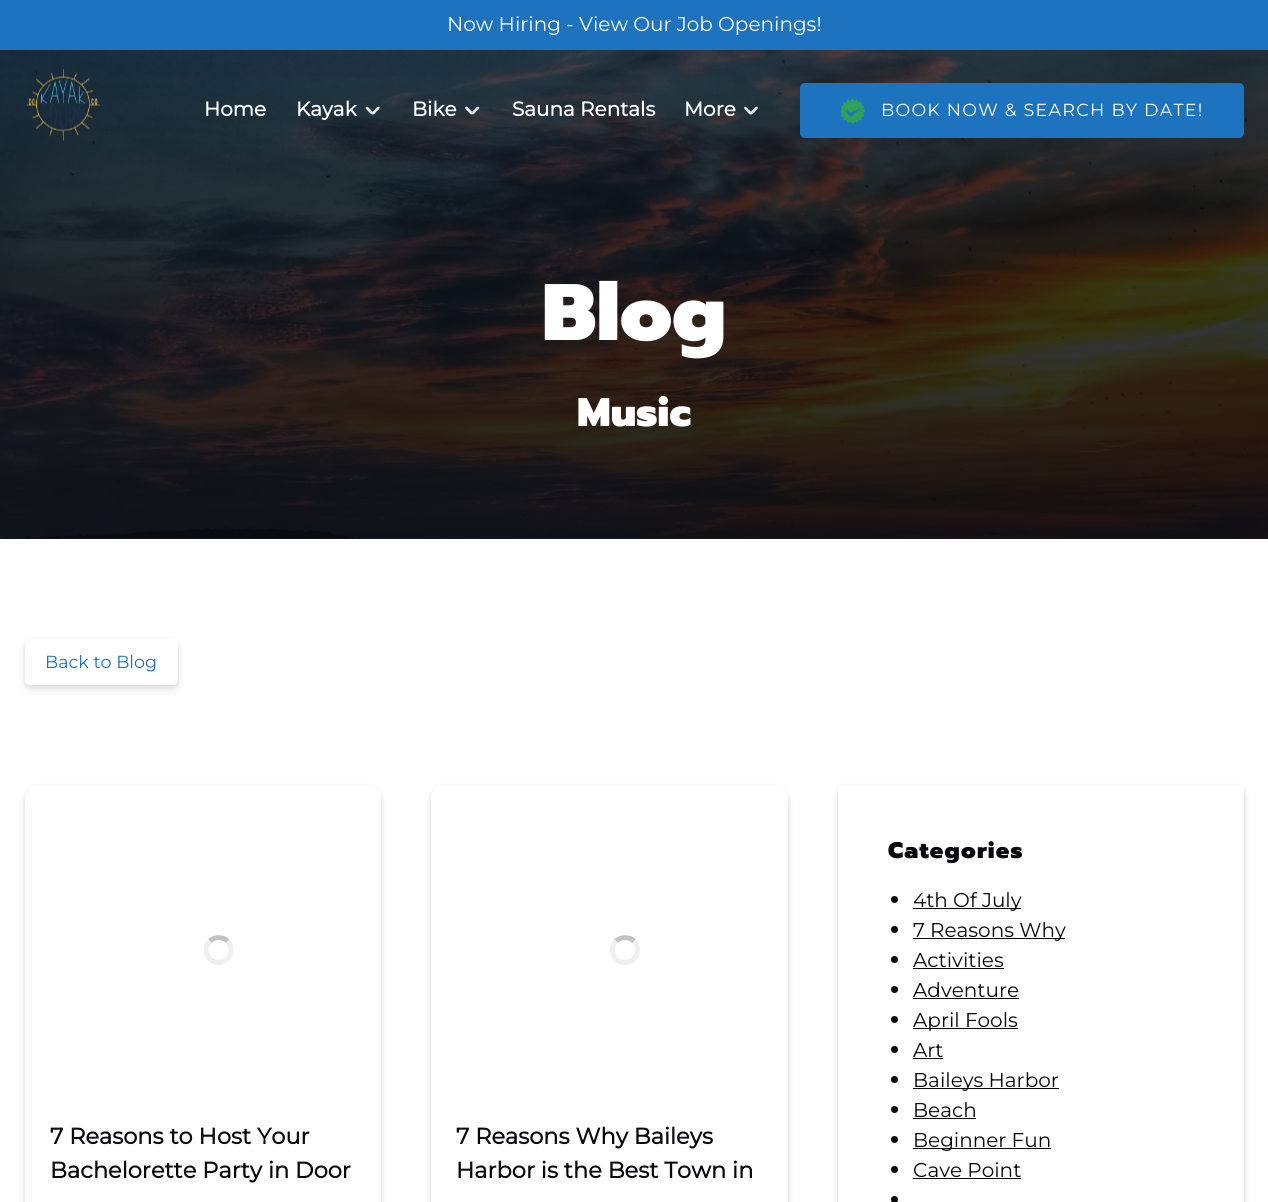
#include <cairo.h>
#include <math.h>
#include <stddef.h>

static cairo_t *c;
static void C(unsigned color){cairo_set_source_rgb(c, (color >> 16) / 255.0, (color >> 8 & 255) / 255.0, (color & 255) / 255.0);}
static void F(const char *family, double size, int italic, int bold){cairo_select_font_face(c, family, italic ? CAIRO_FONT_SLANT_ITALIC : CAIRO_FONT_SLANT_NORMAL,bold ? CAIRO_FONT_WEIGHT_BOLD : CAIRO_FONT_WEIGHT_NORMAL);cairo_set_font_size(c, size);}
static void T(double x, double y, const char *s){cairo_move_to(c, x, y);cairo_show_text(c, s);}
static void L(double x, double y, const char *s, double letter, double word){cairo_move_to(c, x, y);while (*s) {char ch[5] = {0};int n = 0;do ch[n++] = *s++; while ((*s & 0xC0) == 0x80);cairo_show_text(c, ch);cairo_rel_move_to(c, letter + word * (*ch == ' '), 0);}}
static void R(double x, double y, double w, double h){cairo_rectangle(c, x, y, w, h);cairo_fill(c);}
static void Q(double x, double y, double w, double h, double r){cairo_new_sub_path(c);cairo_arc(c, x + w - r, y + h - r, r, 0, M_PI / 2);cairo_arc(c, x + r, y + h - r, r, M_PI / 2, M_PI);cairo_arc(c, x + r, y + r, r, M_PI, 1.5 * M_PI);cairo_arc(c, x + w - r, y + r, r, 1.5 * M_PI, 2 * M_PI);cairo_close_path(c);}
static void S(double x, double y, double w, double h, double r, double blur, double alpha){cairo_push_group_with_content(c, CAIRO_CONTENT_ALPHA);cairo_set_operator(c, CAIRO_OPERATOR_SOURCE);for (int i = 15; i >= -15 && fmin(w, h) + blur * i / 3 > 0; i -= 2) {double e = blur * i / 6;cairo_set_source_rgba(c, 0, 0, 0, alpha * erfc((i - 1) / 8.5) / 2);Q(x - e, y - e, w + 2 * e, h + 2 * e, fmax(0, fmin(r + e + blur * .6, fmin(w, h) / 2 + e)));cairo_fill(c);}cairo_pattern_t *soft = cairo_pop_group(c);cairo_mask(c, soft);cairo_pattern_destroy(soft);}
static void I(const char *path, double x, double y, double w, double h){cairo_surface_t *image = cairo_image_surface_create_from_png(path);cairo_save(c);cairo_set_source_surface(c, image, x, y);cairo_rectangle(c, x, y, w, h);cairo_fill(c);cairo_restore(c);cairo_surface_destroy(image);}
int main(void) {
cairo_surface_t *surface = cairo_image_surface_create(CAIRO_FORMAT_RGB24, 1268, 1202);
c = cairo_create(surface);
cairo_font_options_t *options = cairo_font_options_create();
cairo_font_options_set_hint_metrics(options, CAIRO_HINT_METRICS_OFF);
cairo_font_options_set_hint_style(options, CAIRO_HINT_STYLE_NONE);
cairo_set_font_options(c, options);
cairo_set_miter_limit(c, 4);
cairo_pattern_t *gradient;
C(0xffffff);
cairo_paint(c);
C(0x1e73be);
R(0,0,1268,50);
F("Montserrat Thin",20,0,0);
C(0xffffff);
T(447,31,"Now Hiring - View Our Job Openings!");
I("3.png",0,50,1268,489);
gradient = cairo_pattern_create_linear(634,539,634,0);
cairo_pattern_add_color_stop_rgba(gradient,0,0.031,0.035,0.055,.9);
cairo_pattern_add_color_stop_rgba(gradient,1,0.031,0.035,0.055,.7);
cairo_set_source(c,gradient);
cairo_pattern_destroy(gradient);
R(0,50,1268,489);
I("1.png",27,68,73,73);
F("Montserrat",20,0,1);
C(0xffffff);
T(204,116,"Home");
T(296,116,"Kayak");
C(0xe6e6e6);
cairo_new_path(c);
cairo_move_to(c,366,107);
cairo_curve_to(c,367.5,105.5,369.5,109,370.5,109.5);
cairo_curve_to(c,371,110.5,374.5,112.5,373,114);
cairo_curve_to(c,371.5,115.5,369.5,112.5,368.5,111.5);
cairo_curve_to(c,368,110.5,364.5,108.5,366,107);
cairo_close_path(c);
cairo_fill(c);
cairo_new_path(c);
cairo_move_to(c,379.5,107);
cairo_curve_to(c,380.5,108.5,377.5,110.5,376.5,111.5);
cairo_curve_to(c,376,112.5,373.5,115.5,372,114);
cairo_curve_to(c,371,112.5,374,110.5,375,109.5);
cairo_curve_to(c,375.5,109,378,105.5,379.5,107);
cairo_close_path(c);
cairo_fill(c);
C(0xffffff);
T(412,116,"Bike");
C(0xe6e6e6);
cairo_new_path(c);
cairo_move_to(c,465.5,107);
cairo_curve_to(c,467,105.5,469,109,470,109.5);
cairo_curve_to(c,470.5,110.5,474,112.5,472.5,114);
cairo_curve_to(c,471,115.5,469,112.5,468,111.5);
cairo_curve_to(c,467.5,110.5,464,108.5,465.5,107);
cairo_close_path(c);
cairo_fill(c);
cairo_new_path(c);
cairo_move_to(c,479,107);
cairo_curve_to(c,480.5,108.5,477,110.5,476,111.5);
cairo_curve_to(c,475.5,112.5,473,115.5,472,114);
cairo_curve_to(c,470.5,112.5,473.5,110.5,474.5,109.5);
cairo_curve_to(c,475,109,477.5,105.5,479,107);
cairo_close_path(c);
cairo_fill(c);
C(0xffffff);
T(512,116,"Sauna Rentals");
T(684,116,"More");
C(0xe6e6e6);
cairo_new_path(c);
cairo_move_to(c,744.5,107);
cairo_curve_to(c,745.5,105.5,748,109,748.5,109.5);
cairo_curve_to(c,749.5,110.5,753,112.5,751.5,114);
cairo_curve_to(c,750,115.5,747.5,112.5,747,111.5);
cairo_curve_to(c,746,110.5,743,108.5,744.5,107);
cairo_close_path(c);
cairo_fill(c);
cairo_new_path(c);
cairo_move_to(c,757.5,107);
cairo_curve_to(c,759,108.5,755.5,110.5,755,111.5);
cairo_curve_to(c,754,112.5,752,115.5,750.5,114);
cairo_curve_to(c,749,112.5,752.5,110.5,753,109.5);
cairo_curve_to(c,754,109,756,105.5,757.5,107);
cairo_close_path(c);
cairo_fill(c);
C(0x1e73be);
Q(800,83,444,55,5);
cairo_fill(c);
I("2.png",840,99,25,25);
F("Montserrat Thin",17.5,0,0);
C(0xffffff);
L(881,116,"BOOK NOW & SEARCH BY DATE!",1.25,0);
F("Prompt Black",80,0,0);
T(542,340,"Blog");
F("Prompt Black",40,0,0);
T(577,426,"Music");
C(0x000000);
S(25,644,153,46,5,4,.1);
S(25,640,153,46,5,2,.08);
C(0xffffff);
Q(25,639,153,46,5);
cairo_fill(c);
F("Montserrat Thin",17.5,0,0);
C(0x1e73be);
T(45,668,"Back to Blog");
C(0x000000);
S(25,790,356,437,13,4,.1);
S(25,786,356,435,13,2,.08);
C(0xffffff);
Q(25,785,356,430,13);
cairo_fill(c);
cairo_new_path(c);
cairo_move_to(c,210,941);
cairo_curve_to(c,214.5,936.5,223,936.5,227.5,941);
C(0xc1c2c3);
cairo_set_line_width(c,5);
cairo_stroke(c);
cairo_new_path(c);
cairo_move_to(c,227.5,941);
cairo_curve_to(c,230,943.5,231,946.5,231,950);
cairo_curve_to(c,231,965,209.5,967,206.5,952.5);
cairo_curve_to(c,205.5,948.5,207,944,210,941);
cairo_set_source_rgba(c,0.757,0.761,0.765,0.25);
cairo_stroke(c);
F("Montserrat",22.5,0,1);
C(0x08090e);
T(50,1144,"7 Reasons to Host Your");
T(50,1178,"Bachelorette Party in Door");
C(0x000000);
S(431,790,357,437,13,4,.1);
S(431,786,357,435,13,2,.08);
C(0xffffff);
Q(431,785,357,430,13);
cairo_fill(c);
cairo_new_path(c);
cairo_move_to(c,616,941);
cairo_curve_to(c,621,936.5,629,936.5,634,941);
C(0xc1c2c3);
cairo_stroke(c);
cairo_new_path(c);
cairo_move_to(c,634,941);
cairo_curve_to(c,636,943.5,637.5,946.5,637.5,950);
cairo_curve_to(c,637.5,965,615.5,967,612.5,952.5);
cairo_curve_to(c,612,948.5,613,944,616,941);
cairo_set_source_rgba(c,0.757,0.761,0.765,0.25);
cairo_stroke(c);
C(0x08090e);
T(456,1144,"7 Reasons Why Baileys");
T(456,1178,"Harbor is the Best Town in");
C(0x000000);
S(838,790,406,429,5,4,.1);
S(838,786,406,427,5,2,.08);
C(0xffffff);
Q(838,785,406,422,5);
cairo_fill(c);
F("Prompt Black",22.5,0,0);
C(0x08090e);
L(888,858,"Categories",1.25,0);
cairo_new_path(c);
cairo_arc(c,894.5,899.5,3.5,0,2 * M_PI);
cairo_fill(c);
R(913,908,108,1);
F("Montserrat Thin",20,0,0);
T(913,907,"4th Of July");
cairo_new_path(c);
cairo_arc(c,894.5,929.5,3.5,0,2 * M_PI);
cairo_fill(c);
R(913,938,152,1);
T(913,937,"7 Reasons Why");
cairo_new_path(c);
cairo_arc(c,894.5,959.5,3.5,0,2 * M_PI);
cairo_fill(c);
T(913,967,"Activities");
R(913,968,91,1);
cairo_new_path(c);
cairo_arc(c,894.5,989.5,3.5,0,2 * M_PI);
cairo_fill(c);
T(913,997,"Adventure");
R(913,998,106,1);
cairo_new_path(c);
cairo_arc(c,894.5,1019.5,3.5,0,2 * M_PI);
cairo_fill(c);
R(913,1028,105,1);
T(913,1027,"April Fools");
cairo_new_path(c);
cairo_arc(c,894.5,1049.5,3.5,0,2 * M_PI);
cairo_fill(c);
T(913,1057,"Art");
R(913,1058,30,1);
cairo_new_path(c);
cairo_arc(c,894.5,1079.5,3.5,0,2 * M_PI);
cairo_fill(c);
R(913,1088,146,1);
T(913,1087,"Baileys Harbor");
cairo_new_path(c);
cairo_arc(c,894.5,1109.5,3.5,0,2 * M_PI);
cairo_fill(c);
T(913,1117,"Beach");
R(913,1118,63,1);
cairo_new_path(c);
cairo_arc(c,894.5,1139.5,3.5,0,2 * M_PI);
cairo_fill(c);
R(913,1148,138,1);
T(913,1147,"Beginner Fun");
cairo_new_path(c);
cairo_arc(c,894.5,1169.5,3.5,0,2 * M_PI);
cairo_fill(c);
T(913,1177,"Cave Point");
R(913,1178,108,1);
cairo_new_path(c);
cairo_arc(c,894.5,1199.5,3.5,0,2 * M_PI);
cairo_fill(c);
cairo_surface_write_to_png(surface, "o.png");
cairo_font_options_destroy(options);
cairo_destroy(c);
cairo_surface_destroy(surface);
return 0;
}
